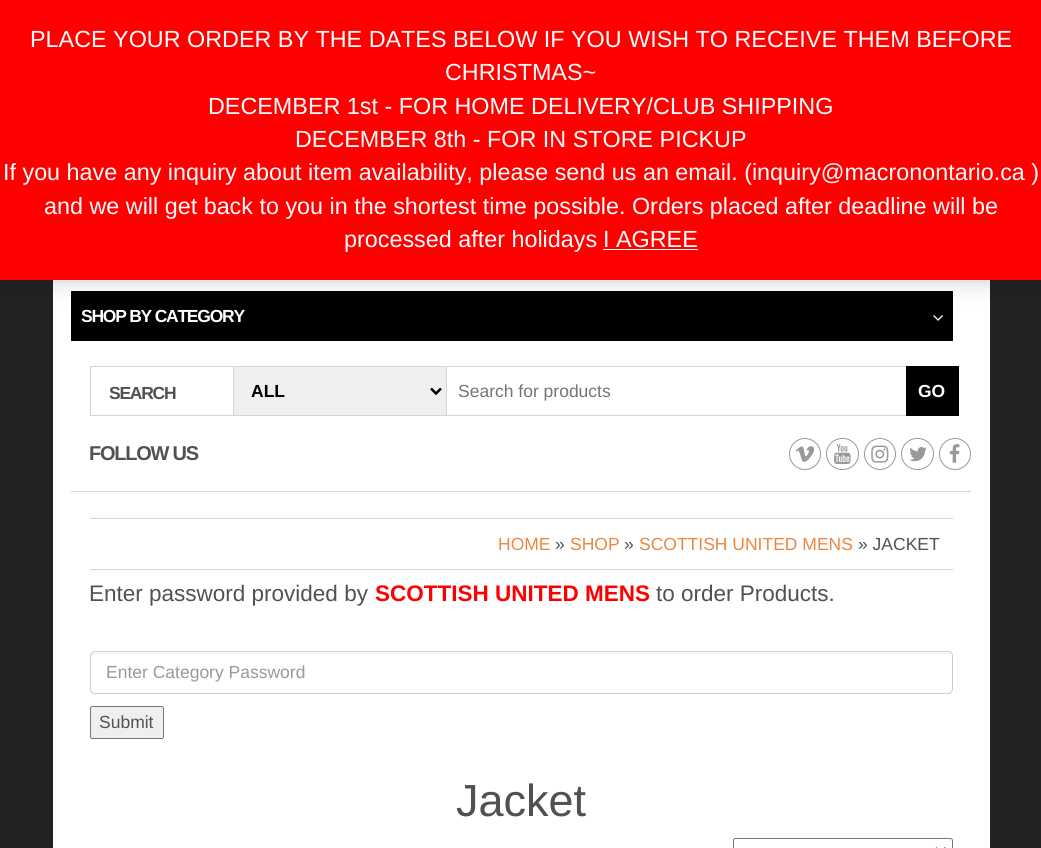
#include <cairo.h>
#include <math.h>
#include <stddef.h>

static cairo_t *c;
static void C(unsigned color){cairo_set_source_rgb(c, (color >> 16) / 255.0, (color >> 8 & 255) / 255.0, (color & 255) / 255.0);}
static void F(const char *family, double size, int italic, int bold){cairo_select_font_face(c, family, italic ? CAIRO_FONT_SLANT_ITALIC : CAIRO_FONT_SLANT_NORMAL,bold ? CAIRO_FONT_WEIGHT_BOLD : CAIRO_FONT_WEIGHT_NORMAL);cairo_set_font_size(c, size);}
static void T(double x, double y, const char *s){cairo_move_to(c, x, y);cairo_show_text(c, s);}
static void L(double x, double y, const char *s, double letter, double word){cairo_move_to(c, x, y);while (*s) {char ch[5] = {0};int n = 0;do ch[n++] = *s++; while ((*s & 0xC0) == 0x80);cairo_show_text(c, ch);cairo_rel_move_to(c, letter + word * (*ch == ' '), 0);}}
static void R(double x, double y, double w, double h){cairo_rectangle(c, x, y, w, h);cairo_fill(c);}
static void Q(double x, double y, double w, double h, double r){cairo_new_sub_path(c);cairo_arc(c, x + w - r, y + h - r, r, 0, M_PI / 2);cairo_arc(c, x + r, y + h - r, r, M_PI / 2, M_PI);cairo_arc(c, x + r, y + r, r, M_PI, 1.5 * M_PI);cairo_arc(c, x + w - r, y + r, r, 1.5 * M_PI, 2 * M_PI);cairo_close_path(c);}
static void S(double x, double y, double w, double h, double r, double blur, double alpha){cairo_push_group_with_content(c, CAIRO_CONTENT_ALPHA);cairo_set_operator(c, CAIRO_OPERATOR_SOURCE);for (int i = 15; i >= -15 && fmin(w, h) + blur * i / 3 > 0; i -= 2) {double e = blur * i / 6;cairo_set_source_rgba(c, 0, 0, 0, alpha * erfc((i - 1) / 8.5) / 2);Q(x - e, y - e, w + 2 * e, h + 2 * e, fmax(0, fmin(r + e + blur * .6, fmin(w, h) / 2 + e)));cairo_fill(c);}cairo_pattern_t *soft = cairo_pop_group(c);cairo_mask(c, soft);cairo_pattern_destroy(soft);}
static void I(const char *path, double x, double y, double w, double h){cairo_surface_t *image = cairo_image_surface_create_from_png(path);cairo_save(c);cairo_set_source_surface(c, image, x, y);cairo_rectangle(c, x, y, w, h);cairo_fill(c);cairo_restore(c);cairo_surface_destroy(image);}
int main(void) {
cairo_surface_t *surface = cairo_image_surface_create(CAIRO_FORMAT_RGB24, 1041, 848);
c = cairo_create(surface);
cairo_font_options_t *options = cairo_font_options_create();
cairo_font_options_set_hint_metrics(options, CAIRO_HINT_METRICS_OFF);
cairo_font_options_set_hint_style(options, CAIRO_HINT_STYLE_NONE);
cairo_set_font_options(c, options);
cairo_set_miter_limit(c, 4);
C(0x222222);
cairo_paint(c);
C(0xffffff);
R(53,280,937,568);
C(0x000000);
R(71,291,882,50);
I("1.png",933,315,10,6);
C(0x000000);
S(0,1,1041,280,0,11.5,.2);
C(0xff0000);
R(0,0,1041,280);
F("Liberation Sans",23.35,0,0);
C(0xffffff);
T(30,47,"PLACE YOUR ORDER BY THE DATES BELOW IF YOU WISH TO RECEIVE THEM BEFORE");
T(445,80,"CHRISTMAS~");
T(208,114,"DECEMBER 1st - FOR HOME DELIVERY/CLUB SHIPPING");
T(295,147,"DECEMBER 8th - FOR IN STORE PICKUP");
T(3,180,"If you have any inquiry about item availability, please send us an email. (inquiry@macronontario.ca )");
T(44,214,"and we will get back to you in the shortest time possible. Orders placed after deadline will be");
T(344,247,"processed after holidays");
T(603,247,"I AGREE");
C(0xfcfbfe);
R(603,249,95,1);
C(0xd3d3d3);
R(71,491,900,1);
F("Liberation Sans",17.5,0,1);
C(0xffffff);
L(81,322,"SHOP BY CATEGORY",-1.25,0);
cairo_rectangle(c,90.5,366.5,143,49);
C(0xd3d3d3);
cairo_set_line_width(c,1);
cairo_stroke(c);
C(0x515151);
L(109,399,"SEARCH",-1.25,0);
C(0xefefef);
R(234,367,212,48);
cairo_rectangle(c,233.5,366.5,214,49);
C(0xd3d3d3);
cairo_stroke(c);
cairo_new_path(c);
cairo_move_to(c,431,388.5);
cairo_line_to(c,436,393.5);
cairo_line_to(c,441,388.5);
C(0x000000);
cairo_set_line_width(c,2.5);
cairo_stroke(c);
T(251,397,"ALL");
C(0xffffff);
R(447,367,1,48);
cairo_rectangle(c,446.5,366.5,503,49);
C(0xd3d3d3);
cairo_set_line_width(c,1);
cairo_stroke(c);
F("Liberation Sans",17.5,0,0);
C(0x757575);
T(458,397,"Search for products");
C(0x000000);
R(906,366,53,50);
F("Liberation Sans",17.5,0,1);
C(0xffffff);
T(918,397,"GO");
F("Liberation Sans",20,0,1);
C(0x515151);
L(89,460,"FOLLOW US",-1.25,0);
cairo_new_path(c);
cairo_arc(c,805,454,15.5,0,2 * M_PI);
C(0x999999);
cairo_stroke(c);
I("2.png",796,446,19,16);
Q(826.5,438.5,32,31,15.5);
cairo_stroke(c);
I("3.png",834,444,17,21);
cairo_arc(c,880,454,15.5,0,2 * M_PI);
cairo_stroke(c);
I("4.png",871,445,18,18);
Q(901.5,438.5,32,31,15.5);
cairo_stroke(c);
I("5.png",909,447,18,15);
cairo_arc(c,955,454,15.5,0,2 * M_PI);
cairo_stroke(c);
I("6.png",949,444,11,19);
C(0xd3d3d3);
R(90,518,863,1);
R(90,569,863,1);
F("Liberation Sans",17.5,0,0);
C(0xea8740);
T(498,550,"HOME");
C(0x515151);
T(555,550,"»");
C(0xea8740);
T(570,550,"SHOP");
C(0x515151);
T(624,550,"»");
C(0xea8740);
T(639,550,"SCOTTISH UNITED MENS");
C(0x515151);
T(858,550,"» JACKET");
F("Liberation Sans",22.5,0,0);
T(89,601,"Enter password provided by");
F("Liberation Sans",22.5,0,1);
C(0xff0000);
T(375,601,"SCOTTISH UNITED MENS");
F("Liberation Sans",22.5,0,0);
C(0x515151);
T(656,601,"to order Products.");
C(0xececec);
cairo_new_path(c);
cairo_move_to(c,95,654);
cairo_line_to(c,948,654);
cairo_curve_to(c,950,654,951,655,951,658);
cairo_curve_to(c,951,655,950,653,947,653);
cairo_line_to(c,95,653);
cairo_curve_to(c,92,653,91,655,91,658);
cairo_curve_to(c,91,655,93,654,95,654);
cairo_close_path(c);
cairo_fill(c);
Q(90.5,651.5,862,42,4.5);
C(0xcccccc);
cairo_stroke(c);
F("Liberation Sans",17.5,0,0);
C(0x999999);
T(106,678,"Enter Category Password");
C(0xefefef);
Q(90.5,706.5,73,32,2);
cairo_fill_preserve(c);
C(0x767676);
cairo_stroke(c);
C(0x515151);
T(99,728,"Submit");
F("Liberation Sans",45,0,0);
T(456,816,"Jacket");
Q(733.5,838.5,219,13,2);
C(0x767676);
cairo_stroke(c);
cairo_new_path(c);
cairo_move_to(c,935.5,848);
cairo_line_to(c,940.5,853);
cairo_line_to(c,945.5,848);
C(0x515151);
cairo_set_line_width(c,2.5);
cairo_stroke(c);
cairo_surface_write_to_png(surface, "o.png");
cairo_font_options_destroy(options);
cairo_destroy(c);
cairo_surface_destroy(surface);
return 0;
}
